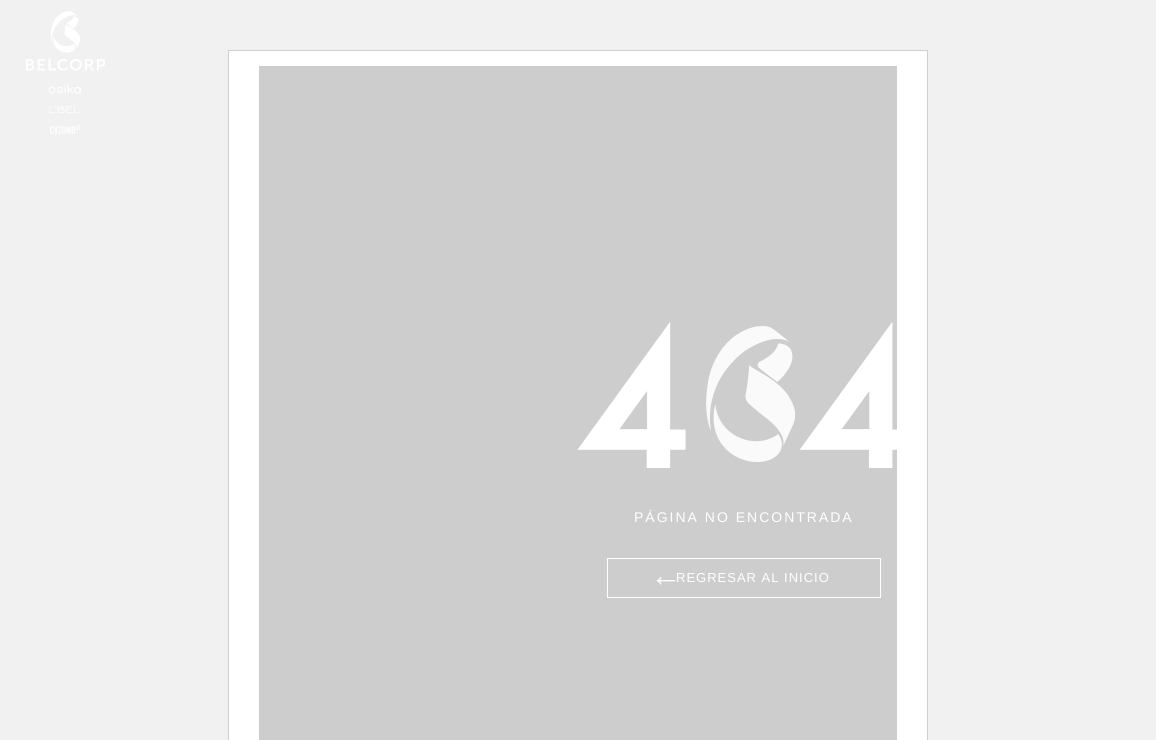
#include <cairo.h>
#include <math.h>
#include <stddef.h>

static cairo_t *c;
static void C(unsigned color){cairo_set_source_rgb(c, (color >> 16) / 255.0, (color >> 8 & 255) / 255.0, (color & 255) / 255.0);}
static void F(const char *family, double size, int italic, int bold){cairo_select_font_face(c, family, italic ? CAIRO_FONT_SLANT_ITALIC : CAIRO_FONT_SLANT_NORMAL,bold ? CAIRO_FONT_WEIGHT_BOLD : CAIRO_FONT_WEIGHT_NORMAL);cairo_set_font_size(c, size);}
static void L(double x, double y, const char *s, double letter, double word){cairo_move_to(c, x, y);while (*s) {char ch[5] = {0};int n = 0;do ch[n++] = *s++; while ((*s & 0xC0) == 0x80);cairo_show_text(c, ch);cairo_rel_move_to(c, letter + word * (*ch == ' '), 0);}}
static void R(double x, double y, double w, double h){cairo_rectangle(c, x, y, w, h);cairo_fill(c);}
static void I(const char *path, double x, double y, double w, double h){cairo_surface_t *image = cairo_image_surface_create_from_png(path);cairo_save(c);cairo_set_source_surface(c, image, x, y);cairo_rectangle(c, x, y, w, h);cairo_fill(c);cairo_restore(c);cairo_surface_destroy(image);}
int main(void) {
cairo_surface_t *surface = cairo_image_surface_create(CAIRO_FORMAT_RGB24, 1156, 740);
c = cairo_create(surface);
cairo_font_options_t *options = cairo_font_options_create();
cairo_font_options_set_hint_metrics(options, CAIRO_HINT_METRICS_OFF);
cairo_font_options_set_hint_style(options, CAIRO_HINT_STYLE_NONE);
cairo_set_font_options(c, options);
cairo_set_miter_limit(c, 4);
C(0xf1f1f1);
cairo_paint(c);
C(0xffffff);
cairo_rectangle(c,228.5,50.5,699,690);
cairo_fill_preserve(c);
C(0xccd0d4);
cairo_set_line_width(c,1);
cairo_stroke(c);
I("1.png",26,11,79,125);
C(0xcdcdcd);
R(259,66,638,674);
I("2.png",577,322,320,146);
F("Liberation Sans",14,0,0);
C(0xffffff);
L(634,522,"PÁGINA NO ENCONTRADA",2,0);
cairo_rectangle(c,607.5,558.5,273,39);
cairo_stroke(c);
F("Liberation Sans",32,0,0);
L(650,586,"←",-12,0);
F("Liberation Sans",13,0,0);
L(676,582,"REGRESAR AL INICIO",1,0);
cairo_surface_write_to_png(surface, "o.png");
cairo_font_options_destroy(options);
cairo_destroy(c);
cairo_surface_destroy(surface);
return 0;
}
